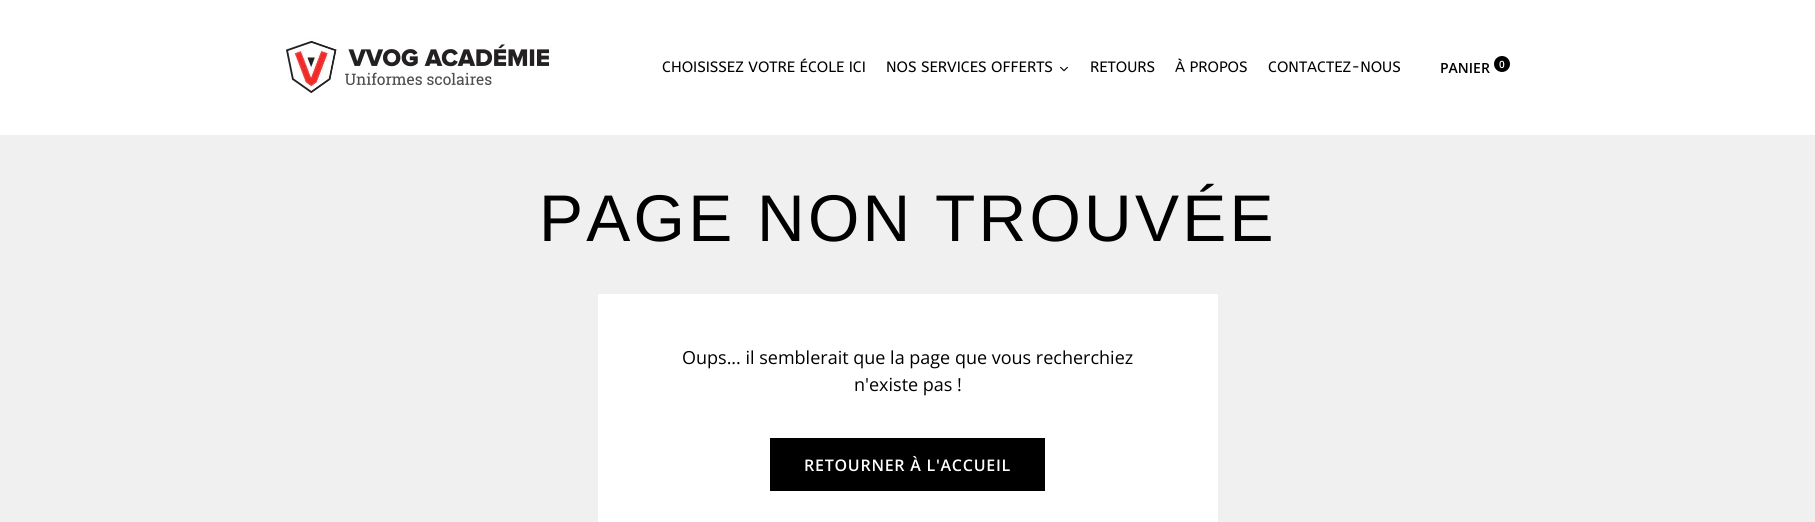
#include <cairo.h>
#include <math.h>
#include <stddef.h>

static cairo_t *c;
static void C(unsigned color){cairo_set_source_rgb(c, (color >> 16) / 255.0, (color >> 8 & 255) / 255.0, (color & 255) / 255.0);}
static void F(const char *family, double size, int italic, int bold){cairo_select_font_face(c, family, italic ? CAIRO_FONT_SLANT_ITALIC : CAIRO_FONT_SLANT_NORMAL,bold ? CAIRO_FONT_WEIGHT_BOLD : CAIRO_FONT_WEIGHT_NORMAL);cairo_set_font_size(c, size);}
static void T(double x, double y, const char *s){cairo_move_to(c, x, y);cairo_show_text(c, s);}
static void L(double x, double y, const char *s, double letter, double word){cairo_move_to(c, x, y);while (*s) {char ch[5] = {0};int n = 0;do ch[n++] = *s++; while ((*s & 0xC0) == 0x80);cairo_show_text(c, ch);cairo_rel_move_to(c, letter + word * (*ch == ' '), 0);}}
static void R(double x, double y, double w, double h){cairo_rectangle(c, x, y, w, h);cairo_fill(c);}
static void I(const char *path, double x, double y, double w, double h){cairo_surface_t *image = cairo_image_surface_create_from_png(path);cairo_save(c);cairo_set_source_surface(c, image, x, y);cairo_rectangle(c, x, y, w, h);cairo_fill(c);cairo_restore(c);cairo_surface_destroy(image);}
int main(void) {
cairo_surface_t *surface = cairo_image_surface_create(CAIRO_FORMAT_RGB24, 1815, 522);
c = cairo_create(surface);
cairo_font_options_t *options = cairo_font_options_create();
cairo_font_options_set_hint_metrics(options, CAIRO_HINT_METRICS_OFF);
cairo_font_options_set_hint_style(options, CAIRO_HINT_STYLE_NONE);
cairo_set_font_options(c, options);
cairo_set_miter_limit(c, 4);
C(0xffffff);
cairo_paint(c);
I("1.png",286,38,266,56);
F("ABeeZee",15,0,0);
C(0x000000);
T(662,72,"CHOISISSEZ VOTRE ÉCOLE ICI");
T(886,72,"NOS SERVICES OFFERTS");
I("2.png",1060,66,8,6);
T(1090,72,"RETOURS");
T(1175,72,"À PROPOS");
T(1268,72,"CONTACTEZ-NOUS");
F("Open Sans SemiBold",14,0,0);
T(1440,73,"PANIER");
cairo_new_path(c);
cairo_arc(c,1502,64,8,0,2 * M_PI);
cairo_fill(c);
F("Open Sans SemiBold",10,0,0);
C(0xffffff);
T(1499,68,"0");
C(0xf0f0f0);
R(0,135,1815,387);
F("Arimo",66,0,0);
C(0x000000);
L(539,241,"PAGE NON TROUVÉE",3.25,0);
C(0xffffff);
R(598,294,620,228);
F("Open Sans",18,0,0);
C(0x000000);
T(682,364,"Oups... il semblerait que la page que vous recherchiez");
T(854,391,"n'existe pas !");
R(770,438,275,53);
F("Open Sans SemiBold",16,0,0);
C(0xffffff);
L(804,471,"RETOURNER À L'ACCUEIL",.75,0);
cairo_surface_write_to_png(surface, "o.png");
cairo_font_options_destroy(options);
cairo_destroy(c);
cairo_surface_destroy(surface);
return 0;
}
